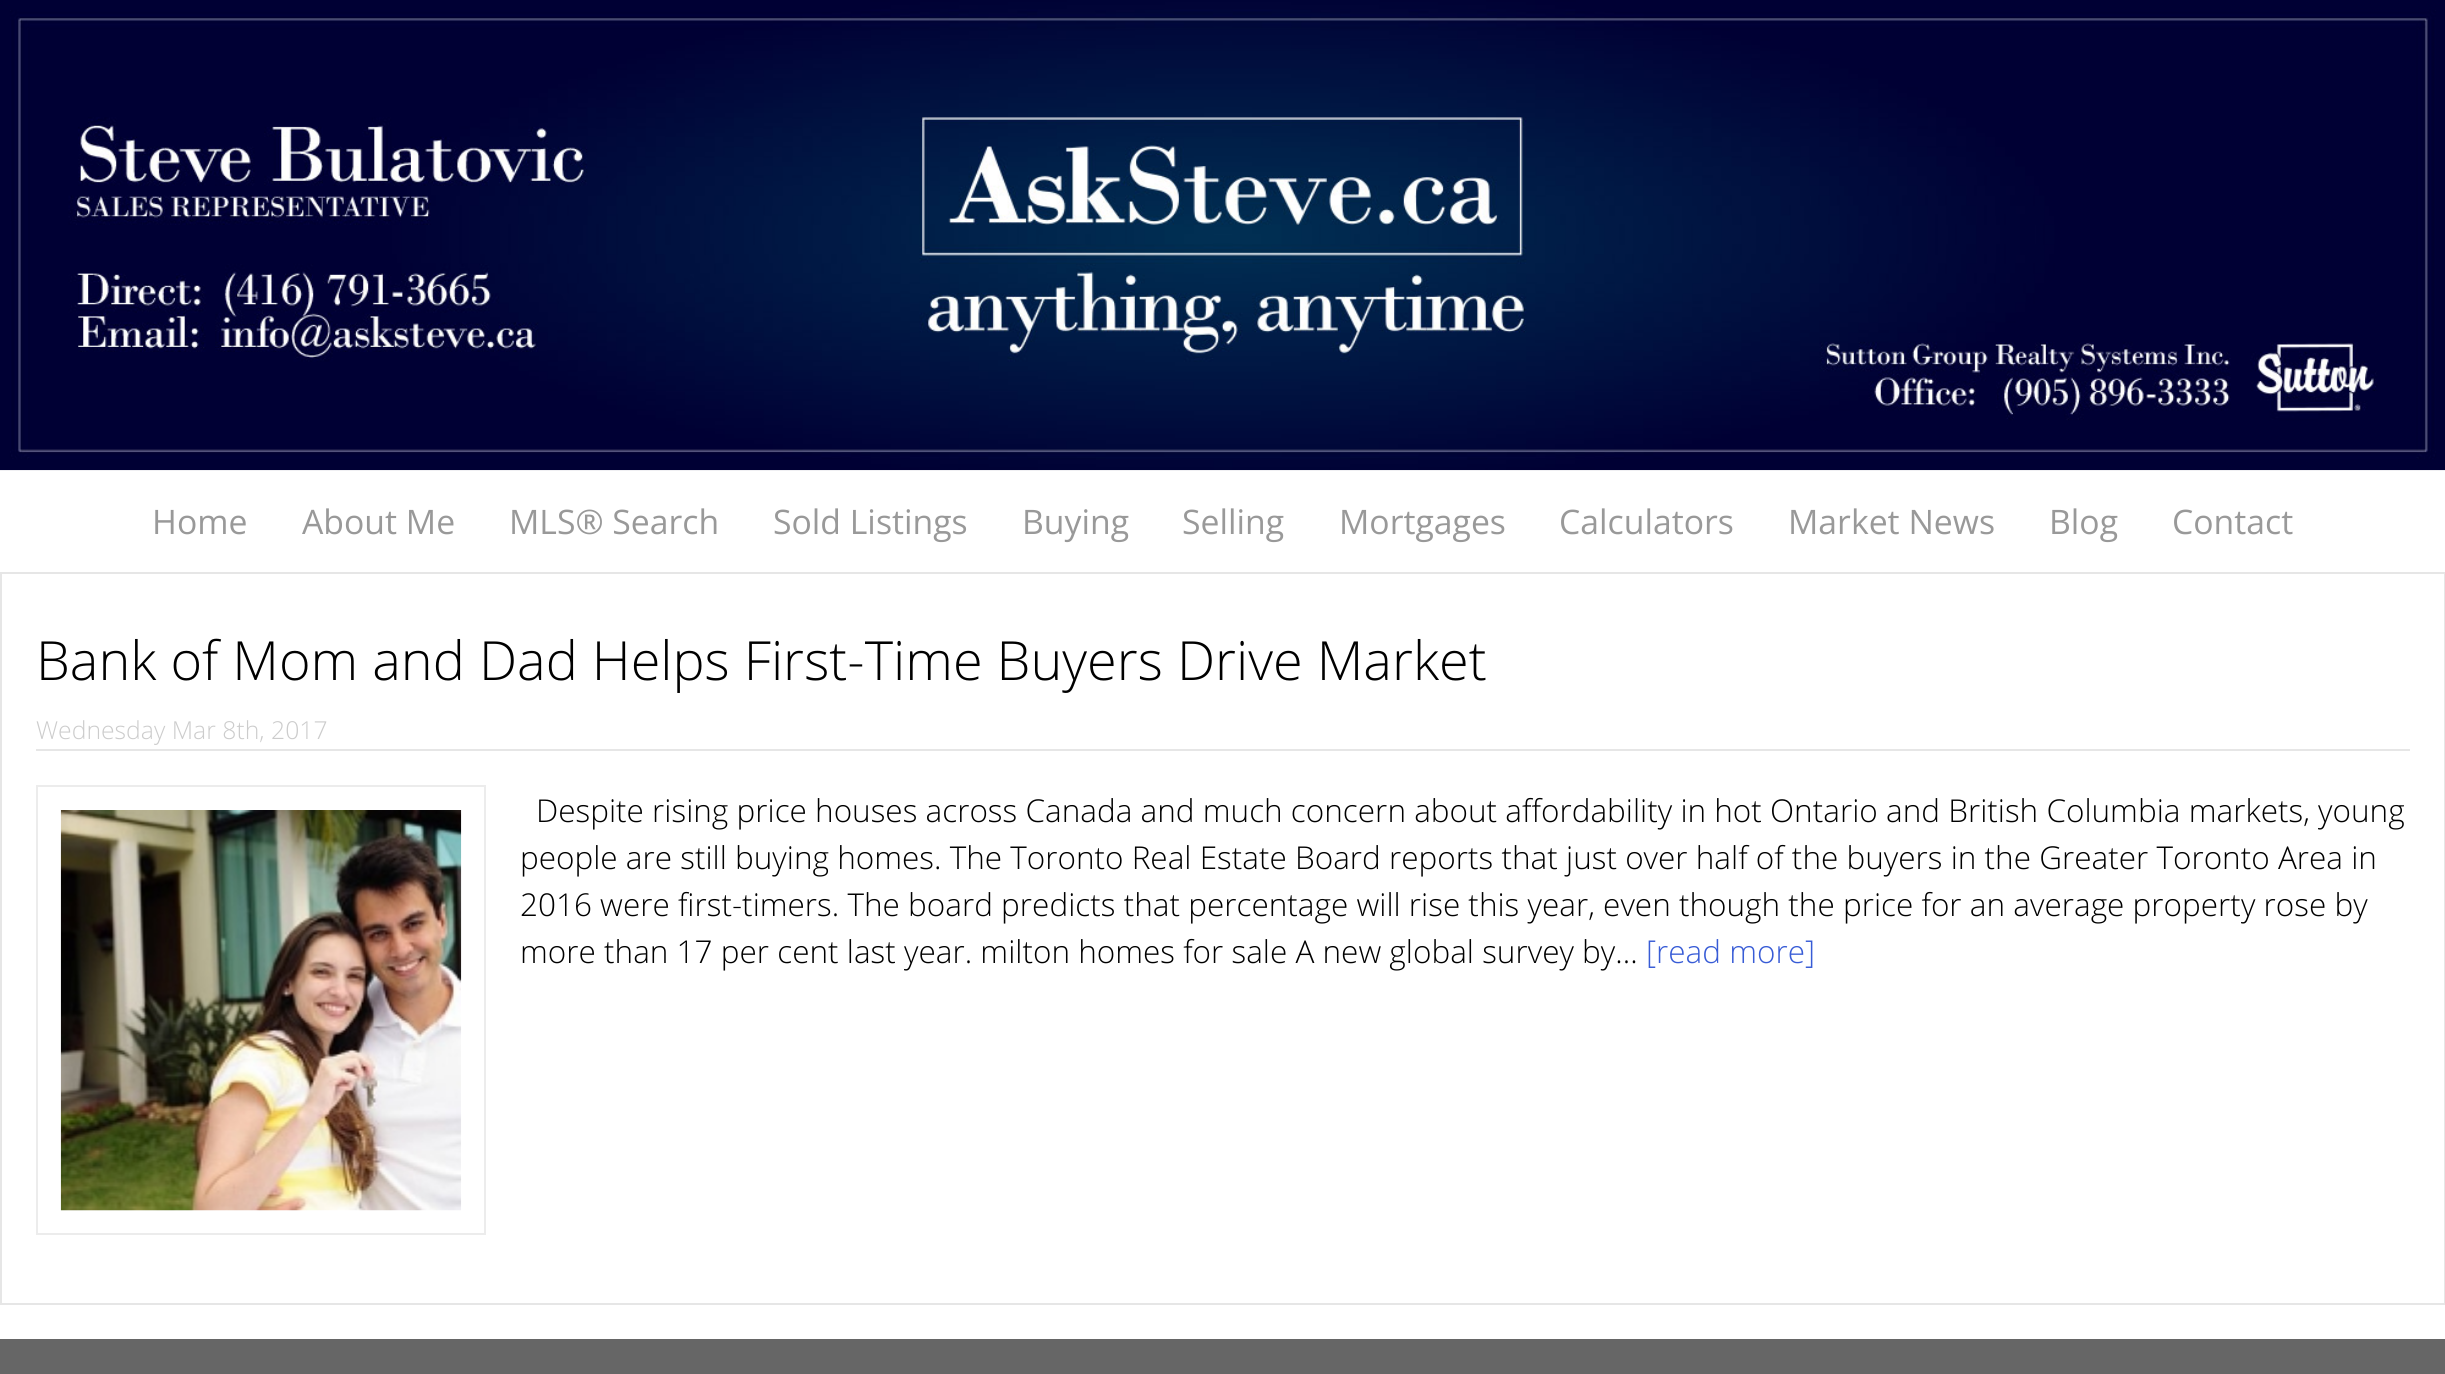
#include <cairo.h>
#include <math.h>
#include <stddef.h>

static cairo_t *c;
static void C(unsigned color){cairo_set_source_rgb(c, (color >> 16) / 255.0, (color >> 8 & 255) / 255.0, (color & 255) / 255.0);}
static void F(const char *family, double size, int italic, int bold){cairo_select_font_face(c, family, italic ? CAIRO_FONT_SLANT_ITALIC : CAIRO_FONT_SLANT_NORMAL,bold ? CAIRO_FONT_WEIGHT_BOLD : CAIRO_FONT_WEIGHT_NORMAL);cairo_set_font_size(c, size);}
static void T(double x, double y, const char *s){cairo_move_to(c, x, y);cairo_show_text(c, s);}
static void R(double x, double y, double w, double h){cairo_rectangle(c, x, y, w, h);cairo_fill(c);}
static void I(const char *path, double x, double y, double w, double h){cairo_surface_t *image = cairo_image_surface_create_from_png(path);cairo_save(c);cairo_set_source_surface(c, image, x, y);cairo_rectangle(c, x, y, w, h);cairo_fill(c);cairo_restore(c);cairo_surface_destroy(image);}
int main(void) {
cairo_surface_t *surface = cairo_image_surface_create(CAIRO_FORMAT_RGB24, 2445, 1374);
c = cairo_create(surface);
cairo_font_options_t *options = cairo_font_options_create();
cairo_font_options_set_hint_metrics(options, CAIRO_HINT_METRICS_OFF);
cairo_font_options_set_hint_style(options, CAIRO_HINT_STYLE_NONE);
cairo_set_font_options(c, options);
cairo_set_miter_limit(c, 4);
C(0xffffff);
cairo_paint(c);
I("1.png",0,0,2445,471);
F("Open Sans",33.75,0,0);
C(0x999999);
T(152,534,"Home");
T(302,534,"About Me");
T(509,534,"MLS® Search");
T(773,534,"Sold Listings");
T(1022,534,"Buying");
T(1182,534,"Selling");
T(1339,534,"Mortgages");
T(1559,534,"Calculators");
T(1788,534,"Market News");
T(2049,534,"Blog");
T(2172,534,"Contact");
cairo_rectangle(c,1,573,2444,731);
C(0xe6e6e6);
cairo_stroke(c);
F("Open Sans Light",54,0,0);
C(0x000000);
T(36,680,"Bank of Mom and Dad Helps First-Time Buyers Drive Market");
F("Open Sans Light",24.75,0,0);
C(0xcccccc);
T(36,739,"Wednesday Mar 8th, 2017");
C(0xe6e6e6);
R(36,749,2374,2);
cairo_rectangle(c,37,786,448,448);
C(0xececec);
cairo_stroke(c);
I("2.png",60,810,402,401);
F("Open Sans Light",31.5,0,0);
C(0x000000);
T(536,822,"Despite rising price houses across Canada and much concern about affordability in hot Ontario and British Columbia markets, young");
T(520,869,"people are still buying homes. The Toronto Real Estate Board reports that just over half of the buyers in the Greater Toronto Area in");
T(520,916,"2016 were first-timers. The board predicts that percentage will rise this year, even though the price for an average property rose by");
T(520,963,"more than 17 per cent last year. milton homes for sale A new global survey by...");
C(0x385cd6);
T(1646,963,"[read more]");
C(0x666666);
R(0,1339,2445,35);
cairo_surface_write_to_png(surface, "o.png");
cairo_font_options_destroy(options);
cairo_destroy(c);
cairo_surface_destroy(surface);
return 0;
}
